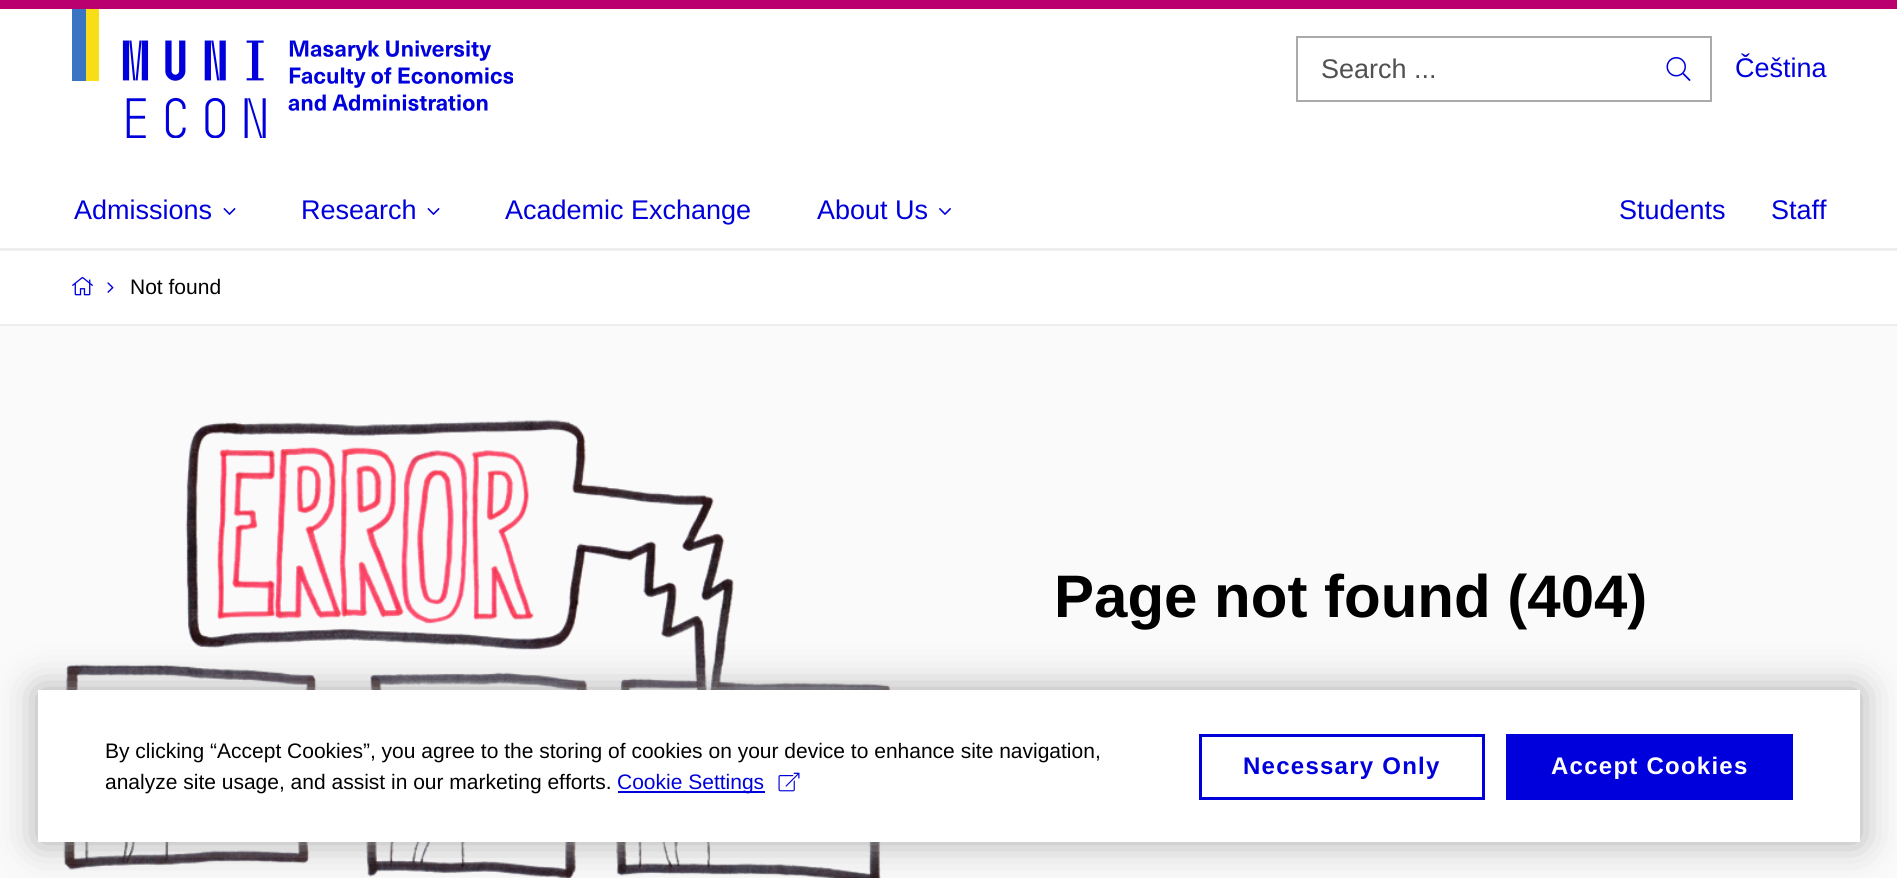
#include <cairo.h>
#include <math.h>
#include <stddef.h>

static cairo_t *c;
static void C(unsigned color){cairo_set_source_rgb(c, (color >> 16) / 255.0, (color >> 8 & 255) / 255.0, (color & 255) / 255.0);}
static void F(const char *family, double size, int italic, int bold){cairo_select_font_face(c, family, italic ? CAIRO_FONT_SLANT_ITALIC : CAIRO_FONT_SLANT_NORMAL,bold ? CAIRO_FONT_WEIGHT_BOLD : CAIRO_FONT_WEIGHT_NORMAL);cairo_set_font_size(c, size);}
static void T(double x, double y, const char *s){cairo_move_to(c, x, y);cairo_show_text(c, s);}
static void L(double x, double y, const char *s, double letter, double word){cairo_move_to(c, x, y);while (*s) {char ch[5] = {0};int n = 0;do ch[n++] = *s++; while ((*s & 0xC0) == 0x80);cairo_show_text(c, ch);cairo_rel_move_to(c, letter + word * (*ch == ' '), 0);}}
static void R(double x, double y, double w, double h){cairo_rectangle(c, x, y, w, h);cairo_fill(c);}
static void Q(double x, double y, double w, double h, double r){cairo_new_sub_path(c);cairo_arc(c, x + w - r, y + h - r, r, 0, M_PI / 2);cairo_arc(c, x + r, y + h - r, r, M_PI / 2, M_PI);cairo_arc(c, x + r, y + r, r, M_PI, 1.5 * M_PI);cairo_arc(c, x + w - r, y + r, r, 1.5 * M_PI, 2 * M_PI);cairo_close_path(c);}
static void S(double x, double y, double w, double h, double r, double blur, double alpha){cairo_push_group_with_content(c, CAIRO_CONTENT_ALPHA);cairo_set_operator(c, CAIRO_OPERATOR_SOURCE);for (int i = 15; i >= -15 && fmin(w, h) + blur * i / 3 > 0; i -= 2) {double e = blur * i / 6;cairo_set_source_rgba(c, 0, 0, 0, alpha * erfc((i - 1) / 8.5) / 2);Q(x - e, y - e, w + 2 * e, h + 2 * e, fmax(0, fmin(r + e + blur * .6, fmin(w, h) / 2 + e)));cairo_fill(c);}cairo_pattern_t *soft = cairo_pop_group(c);cairo_mask(c, soft);cairo_pattern_destroy(soft);}
static void I(const char *path, double x, double y, double w, double h){cairo_surface_t *image = cairo_image_surface_create_from_png(path);cairo_save(c);cairo_set_source_surface(c, image, x, y);cairo_rectangle(c, x, y, w, h);cairo_fill(c);cairo_restore(c);cairo_surface_destroy(image);}
int main(void) {
cairo_surface_t *surface = cairo_image_surface_create(CAIRO_FORMAT_RGB24, 1897, 878);
c = cairo_create(surface);
cairo_font_options_t *options = cairo_font_options_create();
cairo_font_options_set_hint_metrics(options, CAIRO_HINT_METRICS_OFF);
cairo_font_options_set_hint_style(options, CAIRO_HINT_STYLE_NONE);
cairo_set_font_options(c, options);
cairo_set_miter_limit(c, 4);
C(0xfafafa);
cairo_paint(c);
C(0xffffff);
R(0,9,1897,239);
C(0xb9006e);
R(0,0,1897,9);
C(0xeeeeee);
R(0,248,1897,3);
I("1.png",72,9,441,129);
cairo_rectangle(c,1297,37,414,64);
C(0xaaaaaa);
cairo_stroke(c);
F("Liberation Sans",27,0,0);
C(0x505050);
T(1321,78,"Search ...");
I("2.png",1666,57,25,24);
C(0x0000dc);
T(1735,77,"Čeština");
T(74,219,"Admissions");
I("3.png",223,208,13,7);
T(301,219,"Research");
I("3.png",427,208,13,7);
T(505,219,"Academic Exchange");
T(817,219,"About Us");
I("4.png",939,208,12,7);
T(1619,219,"Students");
T(1771,219,"Staff");
C(0xffffff);
R(0,251,1897,73);
C(0xededed);
R(0,324,1897,2);
I("5.png",72,276,21,20);
I("6.png",107,282,7,11);
F("Liberation Sans",21,0,0);
C(0x000000);
T(130,294,"Not found");
I("7.png",63,419,828,459);
F("Liberation Sans",60,0,1);
T(1054,617,"Page not found (404)");
C(0xaaaaaa);
S(38,690,1822,152,0,19,1);
C(0xffffff);
R(38,690,1822,152);
F("Liberation Sans",21,0,0);
C(0x000000);
T(105,758,"By clicking “Accept Cookies”, you agree to the storing of cookies on your device to enhance site navigation,");
T(105,789,"analyze site usage, and assist in our marketing efforts.");
C(0x0000dc);
R(618,791,147,2);
T(617,789,"Cookie Settings");
I("8.png",778,772,22,20);
cairo_rectangle(c,1200.5,735.5,283,63);
cairo_set_line_width(c,3);
cairo_stroke(c);
F("Liberation Sans",24,0,1);
L(1243,774,"Necessary Only",1.25,0);
R(1506,734,287,66);
C(0xffffff);
L(1551,774,"Accept Cookies",1.25,0);
cairo_surface_write_to_png(surface, "o.png");
cairo_font_options_destroy(options);
cairo_destroy(c);
cairo_surface_destroy(surface);
return 0;
}
